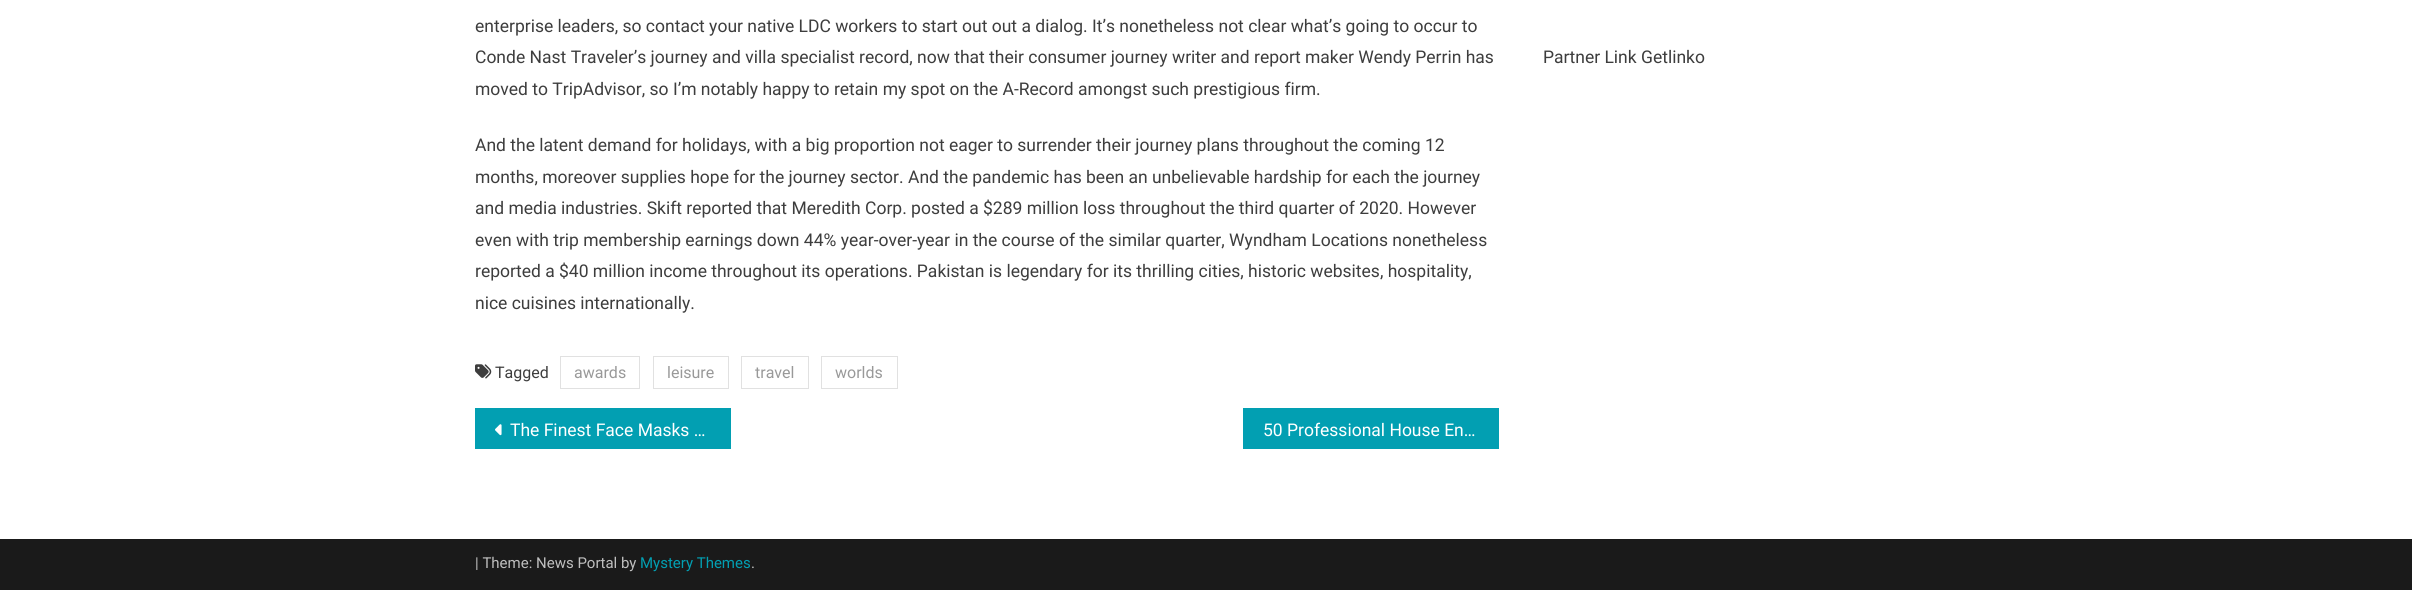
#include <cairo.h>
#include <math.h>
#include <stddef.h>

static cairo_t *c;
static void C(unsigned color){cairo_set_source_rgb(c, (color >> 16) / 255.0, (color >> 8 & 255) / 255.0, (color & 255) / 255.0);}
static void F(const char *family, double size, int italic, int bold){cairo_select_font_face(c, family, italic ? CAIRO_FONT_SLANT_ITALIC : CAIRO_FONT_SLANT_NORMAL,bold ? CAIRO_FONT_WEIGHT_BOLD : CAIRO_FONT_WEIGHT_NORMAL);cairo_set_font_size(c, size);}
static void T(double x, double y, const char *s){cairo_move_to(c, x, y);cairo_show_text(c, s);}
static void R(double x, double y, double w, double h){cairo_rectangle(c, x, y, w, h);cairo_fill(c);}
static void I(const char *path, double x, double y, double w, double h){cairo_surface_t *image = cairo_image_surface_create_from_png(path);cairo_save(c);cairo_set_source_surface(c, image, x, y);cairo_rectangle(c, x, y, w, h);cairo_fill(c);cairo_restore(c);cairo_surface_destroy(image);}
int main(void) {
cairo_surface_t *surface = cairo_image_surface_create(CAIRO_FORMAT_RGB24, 2412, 590);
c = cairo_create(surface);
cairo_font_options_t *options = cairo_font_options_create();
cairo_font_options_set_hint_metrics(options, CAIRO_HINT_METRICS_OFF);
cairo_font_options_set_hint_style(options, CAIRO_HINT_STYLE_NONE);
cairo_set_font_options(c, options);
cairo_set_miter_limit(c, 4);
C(0xffffff);
cairo_paint(c);
F("Roboto",17.5,0,0);
C(0x3d3d3d);
T(475,32,"enterprise leaders, so contact your native LDC workers to start out out a dialog. It’s nonetheless not clear what’s going to occur to");
T(475,63,"Conde Nast Traveler’s journey and villa specialist record, now that their consumer journey writer and report maker Wendy Perrin has");
T(475,95,"moved to TripAdvisor, so I’m notably happy to retain my spot on the A-Record amongst such prestigious firm.");
T(475,151,"And the latent demand for holidays, with a big proportion not eager to surrender their journey plans throughout the coming 12");
T(475,183,"months, moreover supplies hope for the journey sector. And the pandemic has been an unbelievable hardship for each the journey");
T(475,214,"and media industries. Skift reported that Meredith Corp. posted a $289 million loss throughout the third quarter of 2020. However");
T(475,246,"even with trip membership earnings down 44% year-over-year in the course of the similar quarter, Wyndham Locations nonetheless");
T(475,277,"reported a $40 million income throughout its operations. Pakistan is legendary for its thrilling cities, historic websites, hospitality,");
T(475,309,"nice cuisines internationally.");
I("1.png",475,364,17,15);
F("Roboto",16,0,0);
T(495,378,"Tagged");
cairo_rectangle(c,560.5,356.5,79,32);
C(0xe1e1e1);
cairo_set_line_width(c,1);
cairo_stroke(c);
C(0x999999);
T(574,378,"awards");
cairo_rectangle(c,653.5,356.5,75,32);
C(0xe1e1e1);
cairo_stroke(c);
C(0x999999);
T(667,378,"leisure");
cairo_rectangle(c,741.5,356.5,67,32);
C(0xe1e1e1);
cairo_stroke(c);
C(0x999999);
T(755,378,"travel");
cairo_rectangle(c,821.5,356.5,76,32);
C(0xe1e1e1);
cairo_stroke(c);
C(0x999999);
T(835,378,"worlds");
C(0x029fb2);
R(475,408,256,41);
I("2.png",495,424,7,12);
F("Roboto",17.5,0,0);
C(0xffffff);
T(510,436,"The Finest Face Masks …");
C(0x029fb2);
R(1243,408,256,41);
C(0xffffff);
T(1263,436,"50 Professional House En…");
C(0x3d3d3d);
T(1543,63,"Partner Link Getlinko");
C(0x1a1a1a);
R(0,539,2412,51);
F("Roboto",15,0,0);
C(0xbfbfbf);
T(475,568,"| Theme: News Portal by");
C(0x029fb2);
T(640,568,"Mystery Themes");
C(0xbfbfbf);
T(751,568,".");
cairo_surface_write_to_png(surface, "o.png");
cairo_font_options_destroy(options);
cairo_destroy(c);
cairo_surface_destroy(surface);
return 0;
}
